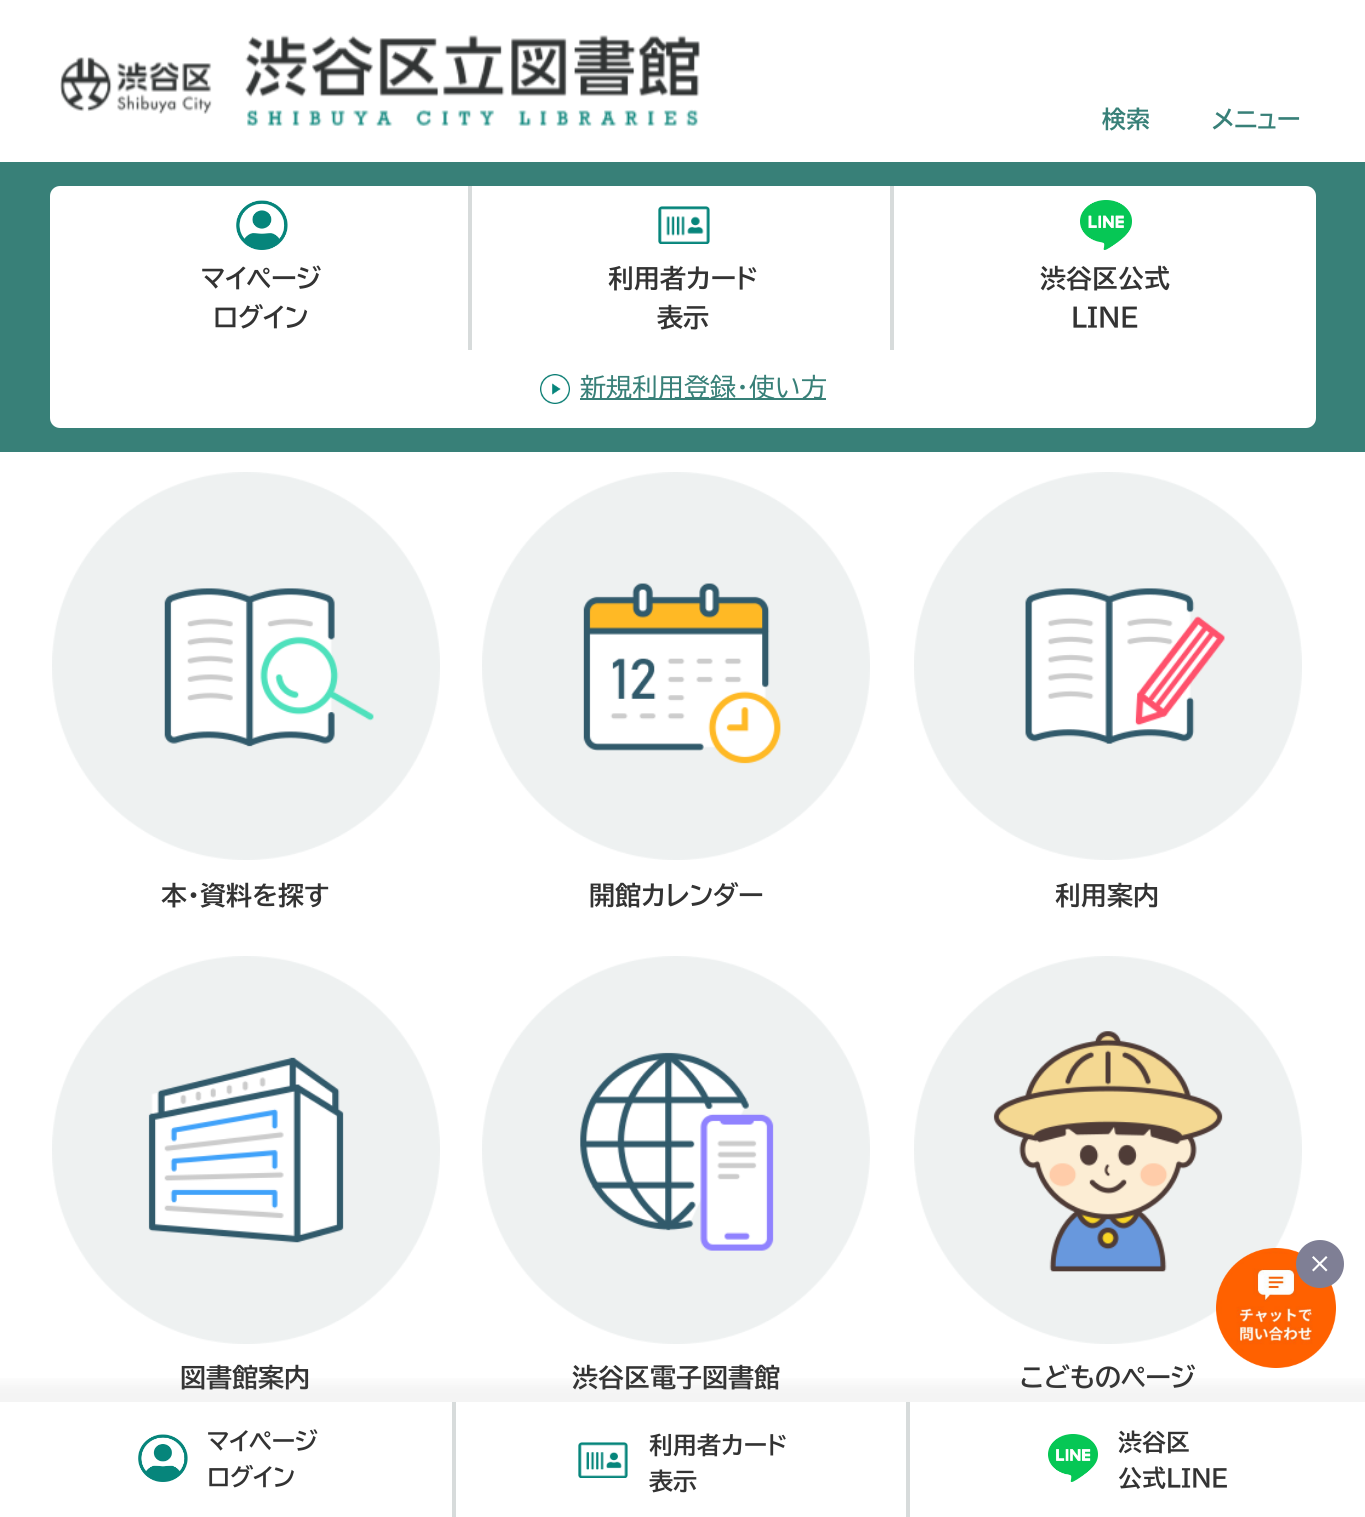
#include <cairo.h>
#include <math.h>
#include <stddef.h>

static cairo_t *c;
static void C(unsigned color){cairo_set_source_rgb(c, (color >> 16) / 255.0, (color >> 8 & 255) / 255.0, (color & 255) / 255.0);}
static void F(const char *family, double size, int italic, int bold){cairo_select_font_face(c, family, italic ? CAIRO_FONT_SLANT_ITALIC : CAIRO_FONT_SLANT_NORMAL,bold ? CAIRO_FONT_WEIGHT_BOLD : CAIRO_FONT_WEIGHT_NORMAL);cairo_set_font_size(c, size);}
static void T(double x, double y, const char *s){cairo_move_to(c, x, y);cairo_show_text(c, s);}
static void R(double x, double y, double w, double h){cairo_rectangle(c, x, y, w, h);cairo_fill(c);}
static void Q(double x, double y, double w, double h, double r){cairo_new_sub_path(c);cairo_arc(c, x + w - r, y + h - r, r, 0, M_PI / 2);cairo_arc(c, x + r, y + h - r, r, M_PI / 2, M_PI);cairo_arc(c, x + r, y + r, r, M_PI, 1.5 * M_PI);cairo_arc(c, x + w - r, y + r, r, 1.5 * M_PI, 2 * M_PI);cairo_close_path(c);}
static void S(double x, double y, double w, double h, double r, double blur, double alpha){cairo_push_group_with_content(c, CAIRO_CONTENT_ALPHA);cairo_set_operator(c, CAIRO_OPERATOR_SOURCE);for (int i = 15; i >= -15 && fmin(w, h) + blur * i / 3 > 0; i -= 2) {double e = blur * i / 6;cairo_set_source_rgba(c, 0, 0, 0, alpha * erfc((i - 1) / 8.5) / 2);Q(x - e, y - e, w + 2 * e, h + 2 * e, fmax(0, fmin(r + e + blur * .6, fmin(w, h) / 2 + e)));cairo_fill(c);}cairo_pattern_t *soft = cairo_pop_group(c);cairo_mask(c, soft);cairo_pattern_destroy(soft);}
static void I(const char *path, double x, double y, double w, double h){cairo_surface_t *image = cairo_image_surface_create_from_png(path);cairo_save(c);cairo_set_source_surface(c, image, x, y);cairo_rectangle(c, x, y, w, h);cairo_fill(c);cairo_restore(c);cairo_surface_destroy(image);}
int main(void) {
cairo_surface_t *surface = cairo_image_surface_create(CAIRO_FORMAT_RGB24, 1365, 1517);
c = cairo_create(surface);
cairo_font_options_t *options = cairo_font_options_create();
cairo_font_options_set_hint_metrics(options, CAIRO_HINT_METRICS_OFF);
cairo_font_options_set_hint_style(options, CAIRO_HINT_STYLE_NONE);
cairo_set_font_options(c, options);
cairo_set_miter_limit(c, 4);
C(0xffffff);
cairo_paint(c);
I("1.png",60,35,640,91);
F("BIZ UDPGothic",24,0,1);
C(0x388078);
T(1102,128,"検索");
T(1212,128,"メニュー");
R(0,162,1365,290);
C(0xffffff);
Q(50,186,1266,242,10);
cairo_fill(c);
I("2.png",236,200,52,50);
F("BIZ UDPGothic",26,0,1);
C(0x333333);
T(201,288,"マイページ");
T(213,327,"ログイン");
C(0xd7dbdb);
R(468,186,4,164);
I("3.png",658,206,52,38);
C(0x333333);
T(608,288,"利用者カード");
T(657,327,"表示");
C(0xd7dbdb);
R(890,186,4,164);
I("4.png",1080,200,52,50);
C(0x333333);
T(1040,288,"渋谷区公式");
T(1071,327,"LINE");
I("5.png",540,374,30,30);
C(0x388078);
R(580,398,246,2);
F("BIZ UDPGothic",26,0,0);
T(580,397,"新規利用登録・使い方");
I("6.png",52,472,388,388);
F("BIZ UDPGothic",26,0,1);
C(0x333333);
T(161,905,"本・資料を探す");
I("7.png",482,472,388,388);
T(589,905,"開館カレンダー");
I("8.png",914,472,388,388);
T(1055,905,"利用案内");
I("9.png",52,956,388,388);
T(180,1387,"図書館案内");
I("10.png",482,956,388,388);
T(572,1387,"渋谷区電子図書館");
I("11.png",914,956,388,388);
T(1020,1387,"こどものページ");
cairo_save(c);
cairo_rectangle(c,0,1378,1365,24);
cairo_clip(c);
C(0x787878);
S(-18,1382,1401,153,0,6,.08);
cairo_restore(c);
I("12.png",138,1434,50,48);
F("BIZ UDPGothic",24,0,1);
T(207,1450,"マイページ");
T(207,1486,"ログイン");
C(0xd7dbdb);
R(452,1402,4,115);
I("13.png",578,1442,50,36);
C(0x333333);
T(649,1454,"利用者カード");
T(649,1490,"表示");
C(0xd7dbdb);
R(906,1402,4,115);
I("14.png",1048,1434,50,48);
C(0x333333);
T(1118,1451,"渋谷区");
T(1118,1487,"公式LINE");
I("15.png",1216,1248,120,120);
C(0x7f7f95);
cairo_arc(c,1320,1264,24,0,2 * M_PI);
cairo_fill(c);
C(0xffffff);
cairo_new_path(c);
cairo_move_to(c,1313.5,1256);
cairo_line_to(c,1327.5,1270);
cairo_line_to(c,1326,1271.5);
cairo_line_to(c,1312,1257.5);
cairo_close_path(c);
cairo_fill(c);
cairo_new_path(c);
cairo_move_to(c,1312,1270);
cairo_line_to(c,1326,1256);
cairo_line_to(c,1327.5,1257.5);
cairo_line_to(c,1313.5,1271.5);
cairo_close_path(c);
cairo_fill(c);
cairo_surface_write_to_png(surface, "o.png");
cairo_font_options_destroy(options);
cairo_destroy(c);
cairo_surface_destroy(surface);
return 0;
}
